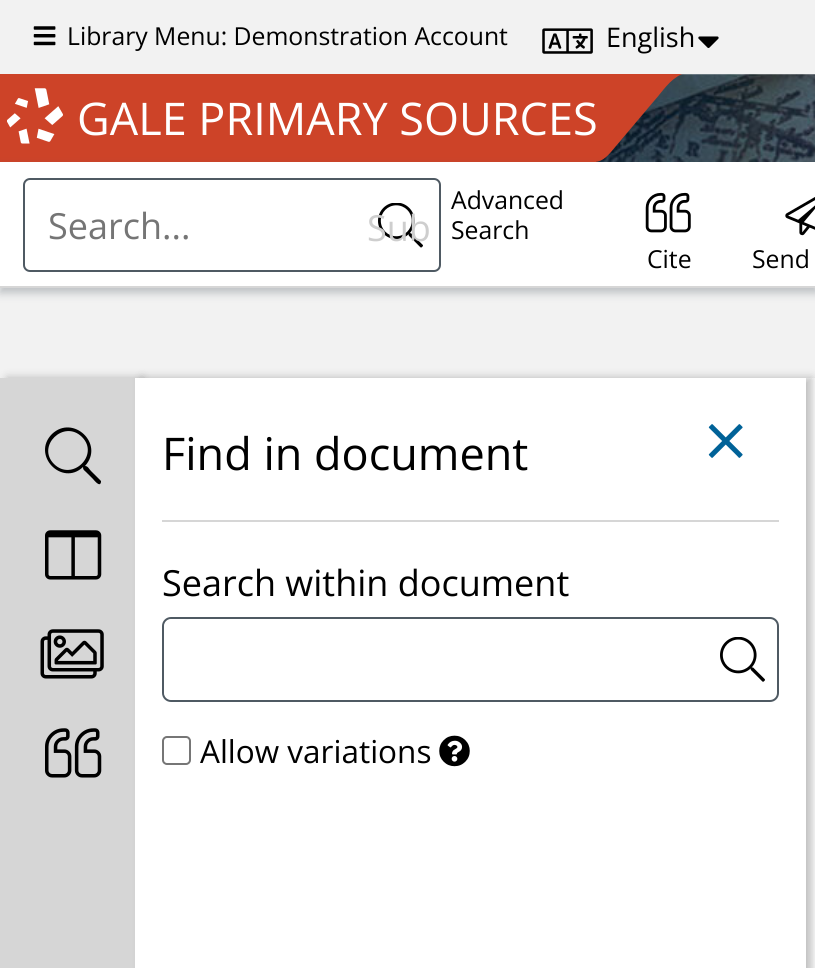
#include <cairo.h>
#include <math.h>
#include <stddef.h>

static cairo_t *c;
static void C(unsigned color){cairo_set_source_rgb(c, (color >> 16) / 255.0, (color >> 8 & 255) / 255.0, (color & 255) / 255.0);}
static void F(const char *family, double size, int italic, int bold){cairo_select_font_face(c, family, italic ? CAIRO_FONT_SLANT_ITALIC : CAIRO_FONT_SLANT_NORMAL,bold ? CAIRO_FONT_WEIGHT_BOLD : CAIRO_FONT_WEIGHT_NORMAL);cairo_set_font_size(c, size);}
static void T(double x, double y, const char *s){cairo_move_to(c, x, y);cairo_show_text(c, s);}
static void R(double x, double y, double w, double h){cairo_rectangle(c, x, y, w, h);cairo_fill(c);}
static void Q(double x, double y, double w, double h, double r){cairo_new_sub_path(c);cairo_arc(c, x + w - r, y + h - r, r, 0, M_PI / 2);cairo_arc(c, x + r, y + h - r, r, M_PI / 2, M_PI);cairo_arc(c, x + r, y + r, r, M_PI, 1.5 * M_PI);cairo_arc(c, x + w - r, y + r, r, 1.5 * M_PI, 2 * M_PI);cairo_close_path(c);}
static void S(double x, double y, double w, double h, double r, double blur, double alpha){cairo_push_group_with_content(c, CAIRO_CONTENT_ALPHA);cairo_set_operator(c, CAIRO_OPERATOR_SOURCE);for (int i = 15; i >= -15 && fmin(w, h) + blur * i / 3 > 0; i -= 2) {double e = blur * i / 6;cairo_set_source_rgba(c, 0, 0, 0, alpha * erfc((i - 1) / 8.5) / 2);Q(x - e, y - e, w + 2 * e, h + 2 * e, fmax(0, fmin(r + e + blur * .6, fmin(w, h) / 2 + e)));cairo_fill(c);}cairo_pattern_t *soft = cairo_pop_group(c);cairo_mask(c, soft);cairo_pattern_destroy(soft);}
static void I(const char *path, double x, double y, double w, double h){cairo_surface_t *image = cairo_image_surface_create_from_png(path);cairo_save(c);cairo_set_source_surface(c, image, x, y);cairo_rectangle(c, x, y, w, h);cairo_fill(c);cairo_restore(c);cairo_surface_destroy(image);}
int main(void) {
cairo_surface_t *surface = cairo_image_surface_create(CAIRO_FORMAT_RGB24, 815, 968);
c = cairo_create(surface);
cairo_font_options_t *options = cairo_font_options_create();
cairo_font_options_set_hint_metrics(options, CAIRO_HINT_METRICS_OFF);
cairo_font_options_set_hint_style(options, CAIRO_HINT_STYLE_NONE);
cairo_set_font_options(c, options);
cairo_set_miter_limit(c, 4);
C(0xffffff);
cairo_paint(c);
C(0xf2f2f2);
R(0,0,815,75);
I("1.png",33,26,23,20);
F("Open Sans",24.75,0,0);
C(0x000000);
T(67,45,"Library Menu: Demonstration Account");
I("2.png",542,28,51,26);
F("Open Sans",27,0,0);
T(606,47,"English");
I("3.png",698,36,21,12);
I("4.png",596,74,219,88);
C(0xcd4328);
cairo_new_path(c);
cairo_move_to(c,594,74);
cairo_line_to(c,682,74);
cairo_curve_to(c,669,80,663,91,654,101);
cairo_line_to(c,616,146);
cairo_curve_to(c,610,153,604,162,594,162);
cairo_close_path(c);
cairo_fill(c);
R(0,74,596,88);
I("5.png",7,88,56,56);
F("Open Sans",45,0,0);
C(0xffffff);
T(77,135,"GALE PRIMARY SOURCES");
C(0xf2f2f2);
R(0,288,815,90);
cairo_save(c);
cairo_set_fill_rule(c,CAIRO_FILL_RULE_EVEN_ODD);
cairo_new_path(c);
cairo_move_to(c,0,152);
cairo_line_to(c,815,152);
cairo_line_to(c,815,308);
cairo_line_to(c,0,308);
cairo_close_path(c);
cairo_move_to(c,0,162);
cairo_line_to(c,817,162);
cairo_line_to(c,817,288);
cairo_line_to(c,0,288);
cairo_close_path(c);
cairo_clip(c);
C(0x4f5a63);
S(0,167,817,126,0,4.5,.33);
cairo_restore(c);
C(0xd6d6d6);
R(0,286,815,2);
Q(24,179,416,92,6);
C(0x4f5a63);
cairo_stroke(c);
F("Open Sans",36,0,0);
C(0x757575);
T(48,239,"Search...");
I("6.png",378,203,45,45);
C(0xcecece);
T(367,241,"Sub");
F("Open Sans",24.75,0,0);
C(0x000000);
T(451,209,"Advanced");
T(451,239,"Search");
I("7.png",645,192,46,41);
T(647,268,"Cite");
I("8.png",785,197,30,39);
T(752,268,"Send");
C(0x000000);
S(7,378,135,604,0,4.5,.25);
C(0xd6d6d6);
R(0,378,135,590);
C(0x000000);
cairo_new_path(c);
cairo_move_to(c,101,481);
cairo_line_to(c,101,482);
cairo_curve_to(c,100,488,94,480,93,479);
cairo_line_to(c,86,472);
cairo_curve_to(c,84,470,83,470,83,467);
cairo_curve_to(c,62,487,31,455,52,434);
cairo_curve_to(c,73,414,105,444,85,466);
cairo_curve_to(c,88,466,89,469,91,471);
cairo_close_path(c);
cairo_move_to(c,54,464);
cairo_curve_to(c,72,482,100,455,82,437);
cairo_curve_to(c,64,419,36,446,54,464);
cairo_close_path(c);
cairo_fill(c);
I("9.png",45,530,57,50);
I("10.png",40,629,64,50);
I("11.png",45,728,57,50);
C(0x000000);
S(142,378,670,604,0,4.5,.25);
C(0xffffff);
R(135,378,671,590);
C(0xd6d6d6);
R(162,520,617,2);
F("Open Sans",45,0,0);
C(0x000000);
T(162,470,"Find in document");
F("Open Sans",36,0,0);
T(162,596,"Search within document");
Q(163,618,615,83,8);
C(0x4f5a63);
cairo_stroke(c);
C(0xffffff);
Q(164,619,556,81,9);
cairo_fill(c);
I("12.png",720,637,45,45);
Q(163,737,27,27,4);
C(0x767676);
cairo_stroke(c);
F("Open Sans",31.5,0,0);
C(0x000000);
T(200,763,"Allow variations");
I("13.png",439,735,31,32);
I("14.png",708,424,35,34);
cairo_surface_write_to_png(surface, "o.png");
cairo_font_options_destroy(options);
cairo_destroy(c);
cairo_surface_destroy(surface);
return 0;
}
